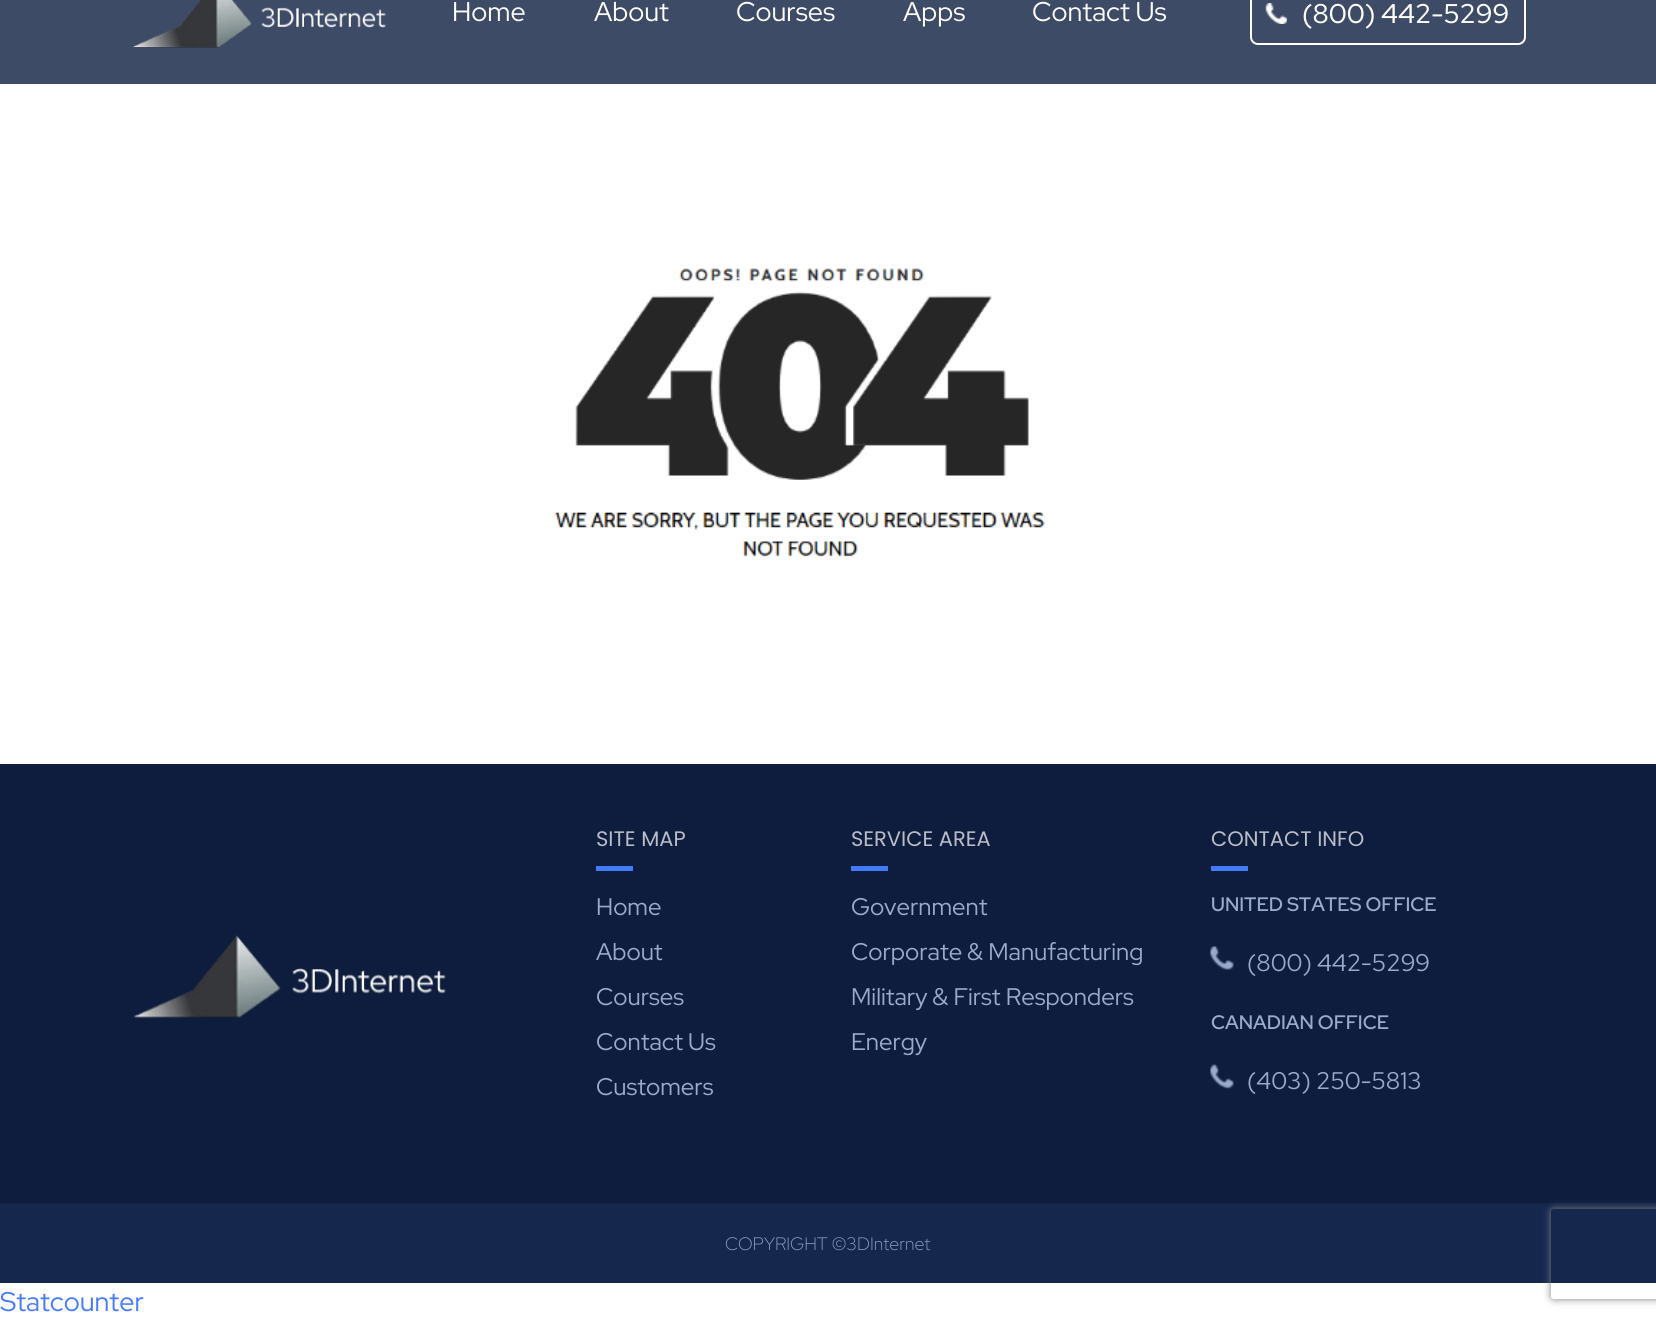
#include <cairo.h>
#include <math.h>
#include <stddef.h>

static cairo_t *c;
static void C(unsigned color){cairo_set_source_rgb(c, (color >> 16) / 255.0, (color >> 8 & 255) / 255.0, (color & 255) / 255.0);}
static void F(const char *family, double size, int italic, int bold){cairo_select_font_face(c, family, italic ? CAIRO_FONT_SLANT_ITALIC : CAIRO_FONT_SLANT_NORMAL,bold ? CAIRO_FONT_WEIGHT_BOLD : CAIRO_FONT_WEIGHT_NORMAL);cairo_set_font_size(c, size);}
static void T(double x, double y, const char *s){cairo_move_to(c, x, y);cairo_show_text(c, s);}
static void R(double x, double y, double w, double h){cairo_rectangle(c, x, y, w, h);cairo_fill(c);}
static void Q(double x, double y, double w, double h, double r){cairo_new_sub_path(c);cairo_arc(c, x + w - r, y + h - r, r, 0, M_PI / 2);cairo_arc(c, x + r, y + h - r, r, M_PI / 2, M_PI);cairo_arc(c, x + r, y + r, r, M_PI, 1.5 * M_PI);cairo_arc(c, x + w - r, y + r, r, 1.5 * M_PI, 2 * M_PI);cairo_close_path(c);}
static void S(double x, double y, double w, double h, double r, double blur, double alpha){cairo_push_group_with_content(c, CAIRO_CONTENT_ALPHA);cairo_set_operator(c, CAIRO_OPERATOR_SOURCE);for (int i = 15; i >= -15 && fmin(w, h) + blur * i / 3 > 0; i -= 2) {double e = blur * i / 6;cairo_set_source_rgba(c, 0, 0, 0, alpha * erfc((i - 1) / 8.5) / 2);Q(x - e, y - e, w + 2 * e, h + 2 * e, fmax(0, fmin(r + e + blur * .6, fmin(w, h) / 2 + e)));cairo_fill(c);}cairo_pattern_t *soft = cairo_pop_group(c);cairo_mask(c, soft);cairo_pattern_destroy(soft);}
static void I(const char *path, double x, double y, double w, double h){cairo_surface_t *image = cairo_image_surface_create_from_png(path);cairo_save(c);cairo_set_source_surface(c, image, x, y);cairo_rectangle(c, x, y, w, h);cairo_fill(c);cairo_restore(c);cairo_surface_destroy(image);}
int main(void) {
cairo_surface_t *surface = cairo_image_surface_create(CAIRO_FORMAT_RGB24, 1656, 1319);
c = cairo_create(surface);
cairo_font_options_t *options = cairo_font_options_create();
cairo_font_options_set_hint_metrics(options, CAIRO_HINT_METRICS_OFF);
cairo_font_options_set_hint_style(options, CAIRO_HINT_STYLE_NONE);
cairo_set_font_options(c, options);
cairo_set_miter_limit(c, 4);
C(0xffffff);
cairo_paint(c);
C(0x3e4b66);
R(0,0,1656,84);
I("1.png",133,0,253,48);
F("Red Hat Display",27,0,0);
C(0xffffff);
T(452,21,"Home");
T(594,21,"About");
T(736,21,"Courses");
T(903,21,"Apps");
T(1032,21,"Contact Us");
Q(1251,-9,274,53,7);
cairo_stroke(c);
I("2.png",1265,3,22,21);
F("Red Hat Display Medium",27,0,0);
T(1302,23,"(800) 442-5299");
I("3.png",554,268,491,289);
F("Red Hat Display",27,0,0);
C(0x447bfe);
T(0,1311,"Statcounter");
C(0x0e1d3d);
R(0,764,1656,439);
I("4.png",133,935,313,84);
F("Poppins",21,0,0);
C(0xb9bdc7);
T(596,846,"SITE MAP");
C(0x447bfe);
R(596,866,37,5);
F("Red Hat Display",24,0,0);
C(0x9aaacc);
T(596,915,"Home");
T(596,960,"About");
T(596,1005,"Courses");
T(596,1050,"Contact Us");
T(596,1095,"Customers");
F("Poppins",21,0,0);
C(0xb9bdc7);
T(851,846,"SERVICE AREA");
C(0x447bfe);
R(851,866,37,5);
F("Red Hat Display",24,0,0);
C(0x9aaacc);
T(851,915,"Government");
T(851,960,"Corporate & Manufacturing");
T(851,1005,"Military & First Responders");
T(851,1050,"Energy");
F("Poppins",21,0,0);
C(0xb9bdc7);
T(1211,846,"CONTACT INFO");
C(0x447bfe);
R(1211,866,37,5);
F("Red Hat Display SemiBold",19.5,0,0);
C(0x9aaacc);
T(1211,911,"UNITED STATES OFFICE");
I("5.png",1210,946,24,24);
F("Red Hat Display",24,0,0);
T(1247,971,"(800) 442-5299");
F("Red Hat Display SemiBold",19.5,0,0);
T(1211,1029,"CANADIAN OFFICE");
I("6.png",1210,1064,24,25);
F("Red Hat Display",24,0,0);
T(1247,1089,"(403) 250-5813");
C(0x15274d);
R(0,1205,1656,78);
C(0x14254a);
R(0,1203,1656,2);
F("Red Hat Display Light",18,0,0);
C(0x8ea0c8);
T(725,1250,"COPYRIGHT ©3DInternet");
cairo_save(c);
cairo_set_fill_rule(c,CAIRO_FILL_RULE_EVEN_ODD);
cairo_new_path(c);
cairo_move_to(c,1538,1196);
cairo_line_to(c,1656,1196);
cairo_line_to(c,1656,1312);
cairo_line_to(c,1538,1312);
cairo_close_path(c);
cairo_move_to(c,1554,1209);
cairo_line_to(c,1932,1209);
cairo_curve_to(c,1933.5,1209,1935,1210.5,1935,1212);
cairo_line_to(c,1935,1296);
cairo_curve_to(c,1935,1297.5,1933.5,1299,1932,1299);
cairo_line_to(c,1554,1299);
cairo_curve_to(c,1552.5,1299,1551,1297.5,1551,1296);
cairo_line_to(c,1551,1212);
cairo_curve_to(c,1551,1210.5,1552.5,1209,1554,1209);
cairo_close_path(c);
cairo_clip(c);
C(0x808080);
S(1551,1209,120,90,3,4,1);
cairo_restore(c);
cairo_surface_write_to_png(surface, "o.png");
cairo_font_options_destroy(options);
cairo_destroy(c);
cairo_surface_destroy(surface);
return 0;
}
